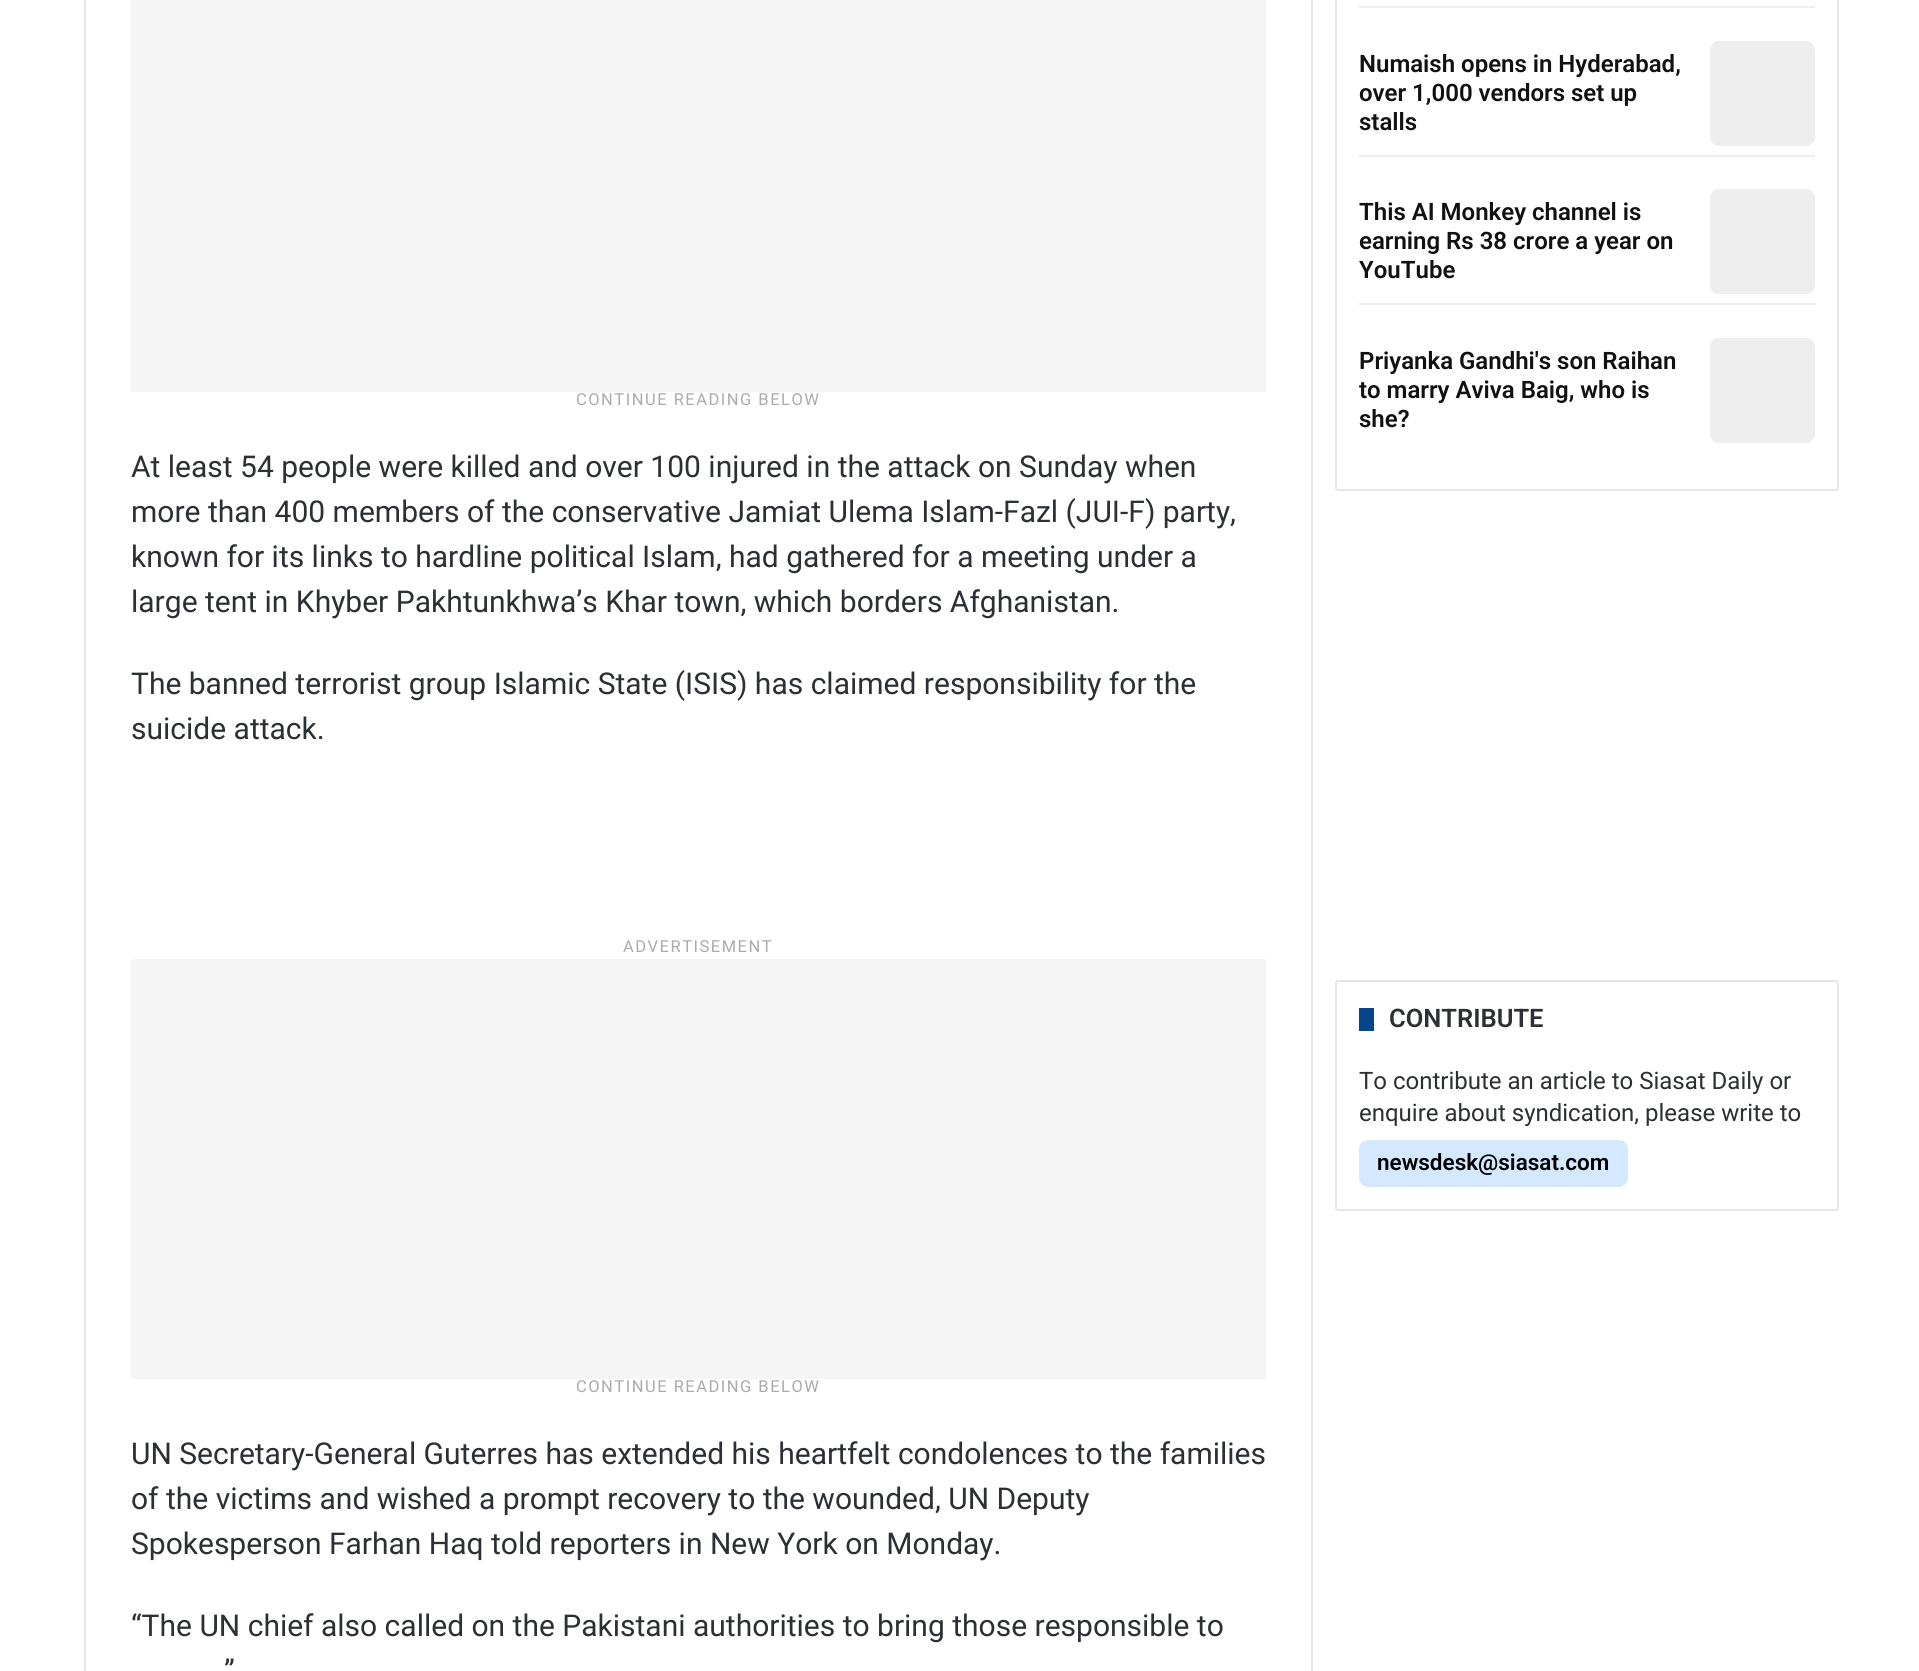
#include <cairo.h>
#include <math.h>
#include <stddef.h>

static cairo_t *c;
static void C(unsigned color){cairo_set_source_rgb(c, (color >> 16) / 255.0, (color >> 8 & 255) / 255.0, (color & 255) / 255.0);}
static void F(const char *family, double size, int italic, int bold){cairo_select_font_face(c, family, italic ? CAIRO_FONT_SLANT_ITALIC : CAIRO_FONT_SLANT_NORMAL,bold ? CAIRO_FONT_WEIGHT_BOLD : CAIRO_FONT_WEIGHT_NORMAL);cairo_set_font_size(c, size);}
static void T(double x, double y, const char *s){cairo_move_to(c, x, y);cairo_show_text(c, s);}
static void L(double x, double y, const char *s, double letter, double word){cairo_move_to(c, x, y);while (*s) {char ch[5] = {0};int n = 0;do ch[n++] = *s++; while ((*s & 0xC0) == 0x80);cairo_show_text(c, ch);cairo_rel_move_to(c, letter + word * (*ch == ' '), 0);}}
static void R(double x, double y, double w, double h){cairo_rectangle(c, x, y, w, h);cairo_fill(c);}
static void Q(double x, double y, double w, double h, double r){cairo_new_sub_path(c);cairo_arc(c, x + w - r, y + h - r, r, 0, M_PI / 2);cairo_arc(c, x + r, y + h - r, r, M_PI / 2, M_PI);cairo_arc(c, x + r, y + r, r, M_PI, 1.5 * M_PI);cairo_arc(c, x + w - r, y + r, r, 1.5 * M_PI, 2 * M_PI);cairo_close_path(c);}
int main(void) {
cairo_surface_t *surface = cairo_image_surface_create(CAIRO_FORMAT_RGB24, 1919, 1671);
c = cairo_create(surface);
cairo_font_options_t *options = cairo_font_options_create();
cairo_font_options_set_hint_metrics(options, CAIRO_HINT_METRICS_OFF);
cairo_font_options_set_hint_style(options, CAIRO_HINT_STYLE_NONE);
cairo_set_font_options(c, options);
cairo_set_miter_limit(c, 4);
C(0xffffff);
cairo_paint(c);
cairo_rectangle(c,85,-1,1227,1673);
C(0xe6e6e6);
cairo_stroke(c);
C(0xf5f5f5);
R(131,0,1135,392);
F("Roboto",16.5,0,0);
C(0xababab);
L(576,405,"CONTINUE READING BELOW",1.5,0);
F("Roboto",30,0,0);
C(0x2c2f34);
T(131,477,"At least 54 people were killed and over 100 injured in the attack on Sunday when");
T(131,522,"more than 400 members of the conservative Jamiat Ulema Islam-Fazl (JUI-F) party,");
T(131,567,"known for its links to hardline political Islam, had gathered for a meeting under a");
T(131,612,"large tent in Khyber Pakhtunkhwa’s Khar town, which borders Afghanistan.");
T(131,694,"The banned terrorist group Islamic State (ISIS) has claimed responsibility for the");
T(131,739,"suicide attack.");
C(0xf5f5f5);
R(131,959,1135,420);
F("Roboto",16.5,0,0);
C(0xababab);
L(623,952,"ADVERTISEMENT",1.5,0);
L(576,1392,"CONTINUE READING BELOW",1.5,0);
F("Roboto",30,0,0);
C(0x2c2f34);
T(131,1464,"UN Secretary-General Guterres has extended his heartfelt condolences to the families");
T(131,1509,"of the victims and wished a prompt recovery to the wounded, UN Deputy");
T(131,1554,"Spokesperson Farhan Haq told reporters in New York on Monday.");
T(131,1636,"“The UN chief also called on the Pakistani authorities to bring those responsible to");
T(224,1681,"”");
Q(1336,-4,502,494,2);
C(0xe6e6e6);
cairo_stroke(c);
C(0xeeeeee);
R(1359,6,456,2);
R(1359,155,456,2);
F("Roboto SemiBold",24,0,0);
C(0x111111);
T(1359,72,"Numaish opens in Hyderabad,");
T(1359,101,"over 1,000 vendors set up");
T(1359,130,"stalls");
C(0xeeeeee);
Q(1710,41,105,105,9);
cairo_fill(c);
R(1359,303,456,2);
C(0x111111);
T(1359,220,"This AI Monkey channel is");
T(1359,249,"earning Rs 38 crore a year on");
T(1359,278,"YouTube");
C(0xeeeeee);
Q(1710,189,105,105,9);
cairo_fill(c);
C(0x111111);
T(1359,369,"Priyanka Gandhi's son Raihan");
T(1359,398,"to marry Aviva Baig, who is");
T(1359,427,"she?");
C(0xeeeeee);
Q(1710,338,105,105,9);
cairo_fill(c);
Q(1336,981,502,229,2);
C(0xe6e6e6);
cairo_stroke(c);
C(0x064588);
R(1359,1008,15,23);
F("Roboto SemiBold",25.5,0,0);
C(0x2c2f34);
T(1389,1027,"CONTRIBUTE");
F("Roboto",24,0,0);
T(1359,1089,"To contribute an article to Siasat Daily or");
T(1359,1121,"enquire about syndication, please write to");
C(0xd4e9ff);
Q(1359,1140,269,47,9);
cairo_fill(c);
F("Roboto SemiBold",22.5,0,0);
C(0x000000);
T(1377,1170,"newsdesk@siasat.com");
cairo_surface_write_to_png(surface, "o.png");
cairo_font_options_destroy(options);
cairo_destroy(c);
cairo_surface_destroy(surface);
return 0;
}
